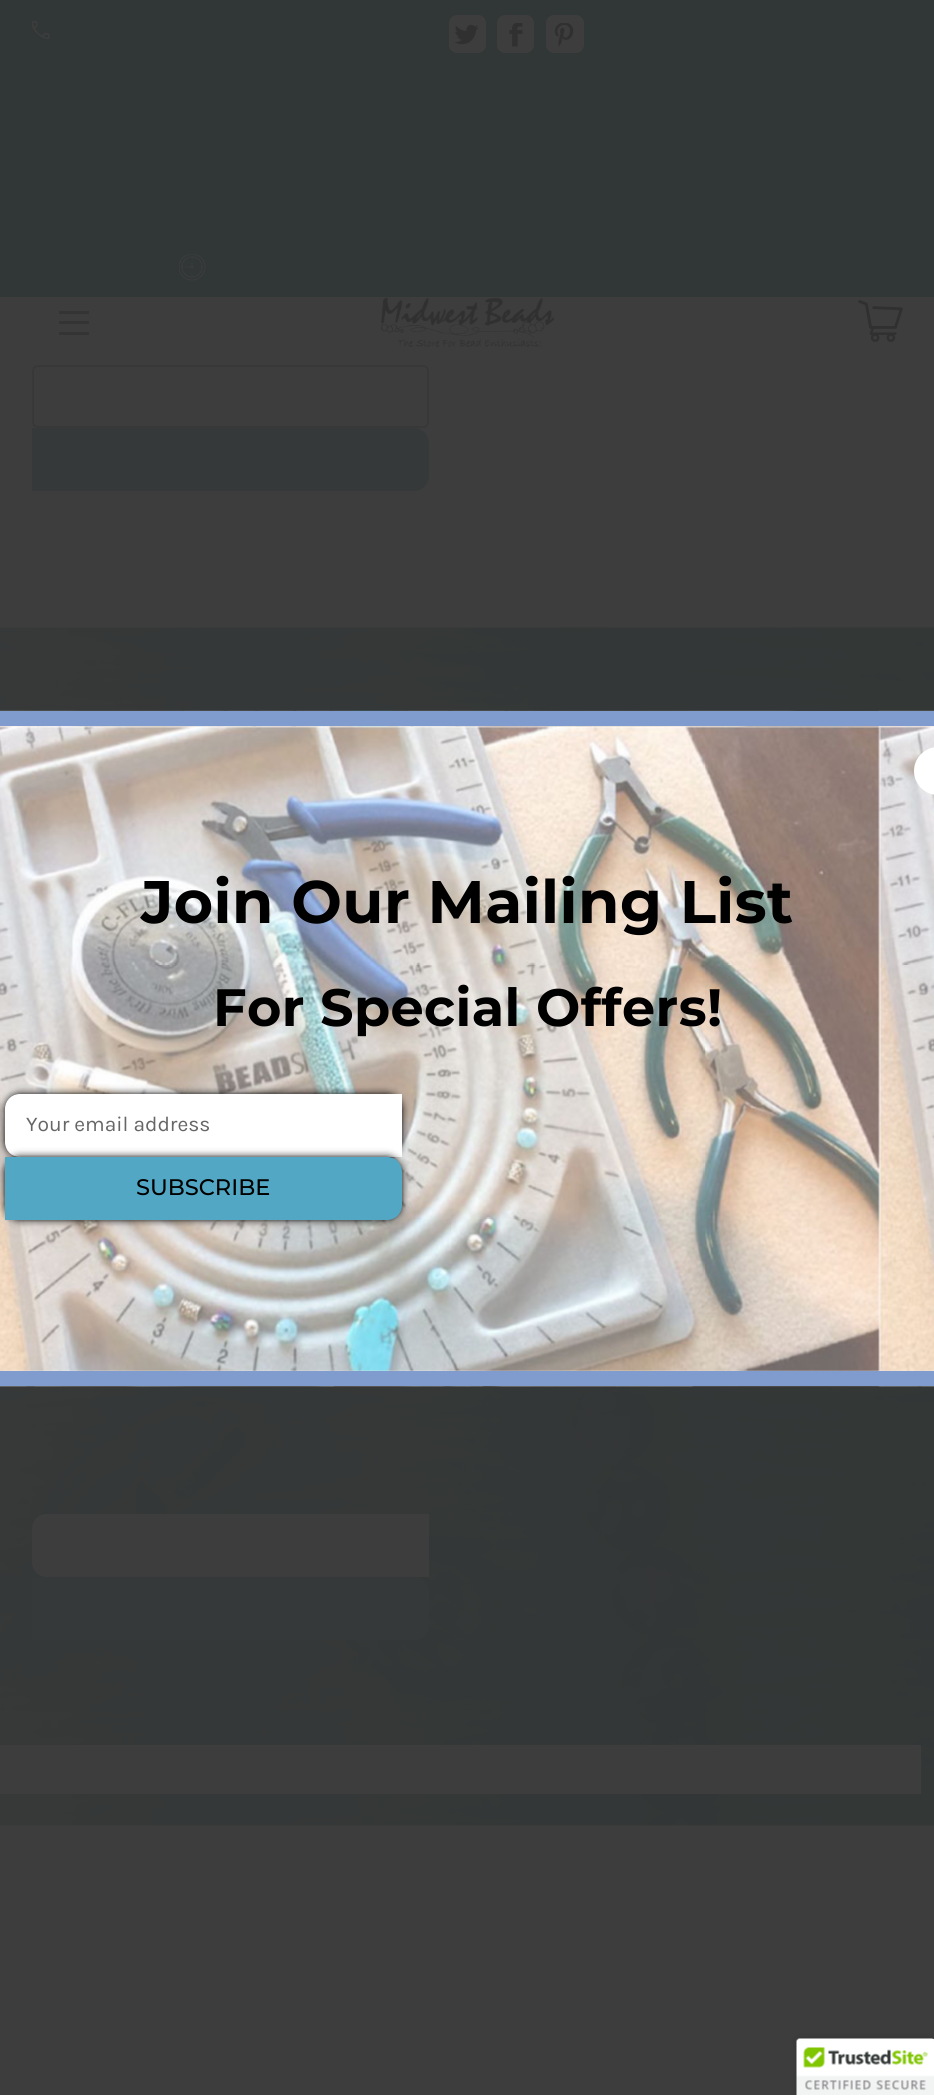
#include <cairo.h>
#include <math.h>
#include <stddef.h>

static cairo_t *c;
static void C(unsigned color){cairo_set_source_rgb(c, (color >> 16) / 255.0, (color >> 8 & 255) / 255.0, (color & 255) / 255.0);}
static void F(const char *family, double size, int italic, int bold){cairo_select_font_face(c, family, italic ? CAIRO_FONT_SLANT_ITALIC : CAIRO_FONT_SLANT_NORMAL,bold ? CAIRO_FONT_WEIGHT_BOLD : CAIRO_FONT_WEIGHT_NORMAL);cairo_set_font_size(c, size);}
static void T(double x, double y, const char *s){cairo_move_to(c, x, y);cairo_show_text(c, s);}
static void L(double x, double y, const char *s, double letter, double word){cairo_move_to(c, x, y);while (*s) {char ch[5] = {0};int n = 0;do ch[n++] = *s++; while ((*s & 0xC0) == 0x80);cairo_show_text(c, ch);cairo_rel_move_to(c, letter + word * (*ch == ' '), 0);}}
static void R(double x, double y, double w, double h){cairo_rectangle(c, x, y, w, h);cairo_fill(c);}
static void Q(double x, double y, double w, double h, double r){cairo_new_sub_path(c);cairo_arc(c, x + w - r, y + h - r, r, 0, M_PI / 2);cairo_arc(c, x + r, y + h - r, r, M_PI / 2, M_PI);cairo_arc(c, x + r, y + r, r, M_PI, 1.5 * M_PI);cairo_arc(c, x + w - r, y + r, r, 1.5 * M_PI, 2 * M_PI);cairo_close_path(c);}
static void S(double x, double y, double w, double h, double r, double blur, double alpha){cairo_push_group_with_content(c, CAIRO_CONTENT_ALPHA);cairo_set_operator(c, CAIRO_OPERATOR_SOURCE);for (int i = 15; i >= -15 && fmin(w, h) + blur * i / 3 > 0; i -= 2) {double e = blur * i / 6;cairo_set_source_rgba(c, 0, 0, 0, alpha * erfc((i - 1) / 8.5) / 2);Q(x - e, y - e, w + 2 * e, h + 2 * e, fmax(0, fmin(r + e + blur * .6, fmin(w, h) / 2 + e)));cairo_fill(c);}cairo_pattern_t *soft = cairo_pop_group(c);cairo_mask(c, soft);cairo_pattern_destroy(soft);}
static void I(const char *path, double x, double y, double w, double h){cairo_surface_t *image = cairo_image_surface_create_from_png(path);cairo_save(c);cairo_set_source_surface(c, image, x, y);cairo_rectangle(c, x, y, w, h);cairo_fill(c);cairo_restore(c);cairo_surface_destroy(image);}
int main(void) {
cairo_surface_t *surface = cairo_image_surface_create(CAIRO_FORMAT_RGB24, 934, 2095);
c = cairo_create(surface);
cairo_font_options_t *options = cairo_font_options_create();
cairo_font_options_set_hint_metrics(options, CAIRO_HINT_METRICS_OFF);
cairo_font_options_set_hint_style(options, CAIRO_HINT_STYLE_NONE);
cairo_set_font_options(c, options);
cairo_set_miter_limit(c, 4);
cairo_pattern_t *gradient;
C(0x3d3d3d);
cairo_paint(c);
gradient = cairo_pattern_create_linear(-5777,149,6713,149);
cairo_pattern_add_color_stop_rgba(gradient,0,0.212,0.224,0.224,1);
cairo_pattern_add_color_stop_rgba(gradient,.02,0.208,0.224,0.22,1);
cairo_pattern_add_color_stop_rgba(gradient,.12,0.2,0.216,0.216,1);
cairo_pattern_add_color_stop_rgba(gradient,.21,0.196,0.212,0.212,1);
cairo_pattern_add_color_stop_rgba(gradient,.29,0.192,0.212,0.208,1);
cairo_pattern_add_color_stop_rgba(gradient,.35,0.192,0.212,0.208,1);
cairo_pattern_add_color_stop_rgba(gradient,.66,0.192,0.212,0.216,1);
cairo_pattern_add_color_stop_rgba(gradient,.75,0.192,0.212,0.216,1);
cairo_pattern_add_color_stop_rgba(gradient,.83,0.196,0.212,0.216,1);
cairo_pattern_add_color_stop_rgba(gradient,.9,0.2,0.216,0.22,1);
cairo_pattern_add_color_stop_rgba(gradient,.96,0.204,0.22,0.224,1);
cairo_pattern_add_color_stop_rgba(gradient,1,0.208,0.224,0.227,1);
cairo_set_source(c,gradient);
cairo_pattern_destroy(gradient);
R(0,0,934,297);
I("1.png",32,21,18,18);
C(0x3d3d3d);
Q(450,16,35,36,7);
cairo_fill_preserve(c);
cairo_stroke(c);
I("2.png",455,24,24,21);
Q(498,16,35,36,7);
cairo_fill_preserve(c);
cairo_stroke(c);
I("3.png",509,23,14,24);
Q(547,16,36,36,7);
cairo_fill_preserve(c);
cairo_stroke(c);
I("4.png",554,23,20,24);
I("5.png",179,254,27,27);
C(0x343434);
R(59,321,30,3);
R(59,311,30,3);
R(59,332,30,3);
I("6.png",381,297,173,50);
I("7.png",858,300,45,42);
Q(33,366,395,61,5);
C(0x383838);
cairo_stroke(c);
C(0x35393a);
cairo_new_path(c);
cairo_move_to(c,32,428);
cairo_line_to(c,414,428);
cairo_curve_to(c,422.5,428,429,434.5,429,443);
cairo_line_to(c,429,476);
cairo_curve_to(c,429,484.5,422.5,491,414,491);
cairo_line_to(c,32,491);
cairo_close_path(c);
cairo_fill(c);
I("8.png",0,627,934,1199);
C(0x3d3d3d);
cairo_new_path(c);
cairo_move_to(c,47,1514);
cairo_line_to(c,429,1514);
cairo_line_to(c,429,1577);
cairo_line_to(c,47,1577);
cairo_curve_to(c,38.5,1577,32,1570.5,32,1562);
cairo_line_to(c,32,1529);
cairo_curve_to(c,32,1520.5,38.5,1514,47,1514);
cairo_close_path(c);
cairo_fill(c);
C(0x35393a);
cairo_new_path(c);
cairo_move_to(c,32,1577);
cairo_line_to(c,414,1577);
cairo_curve_to(c,422.5,1577,429,1583.5,429,1592);
cairo_line_to(c,429,1625);
cairo_curve_to(c,429,1633.5,422.5,1640,414,1640);
cairo_line_to(c,32,1640);
cairo_close_path(c);
cairo_fill(c);
C(0x3d3d3d);
R(0,1745,921,49);
I("9.png",0,710,934,677);
cairo_rectangle(c,-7.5,718.5,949,660);
C(0x809bce);
cairo_set_line_width(c,15);
cairo_stroke(c);
C(0xffffff);
Q(914,747,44,48,24);
cairo_fill(c);
F("Montserrat",60,0,1);
C(0x000000);
L(141,923,"Join Our Mailing List",.4,0);
F("Montserrat",52.5,0,1);
L(213,1026,"For Special Offers!",.4,0);
C(0x000000);
S(5,1094,397,63,15,4,1);
C(0xffffff);
cairo_new_path(c);
cairo_move_to(c,20,1094);
cairo_line_to(c,402,1094);
cairo_line_to(c,402,1157);
cairo_line_to(c,20,1157);
cairo_curve_to(c,11.5,1157,5,1150.5,5,1142);
cairo_line_to(c,5,1109);
cairo_curve_to(c,5,1100.5,11.5,1094,20,1094);
cairo_close_path(c);
cairo_fill(c);
F("Karla",21,0,0);
C(0x666666);
T(26,1131,"Your email address");
C(0x000000);
S(5,1157,397,63,15,4,1);
C(0x52a7c4);
cairo_new_path(c);
cairo_move_to(c,5,1157);
cairo_line_to(c,387,1157);
cairo_curve_to(c,395.5,1157,402,1163.5,402,1172);
cairo_line_to(c,402,1205);
cairo_curve_to(c,402,1213.5,395.5,1220,387,1220);
cairo_line_to(c,5,1220);
cairo_close_path(c);
cairo_fill(c);
F("Montserrat Medium",22.5,0,0);
C(0x000000);
T(136,1195,"SUBSCRIBE");
C(0x000000);
S(797,2039,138,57,3,4,.2);
C(0xffffff);
cairo_new_path(c);
cairo_move_to(c,800,2039);
cairo_line_to(c,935,2039);
cairo_line_to(c,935,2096);
cairo_line_to(c,797,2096);
cairo_line_to(c,797,2042);
cairo_curve_to(c,797,2040.5,798.5,2039,800,2039);
cairo_close_path(c);
cairo_fill(c);
I("10.png",796,2038,138,57);
cairo_surface_write_to_png(surface, "o.png");
cairo_font_options_destroy(options);
cairo_destroy(c);
cairo_surface_destroy(surface);
return 0;
}
